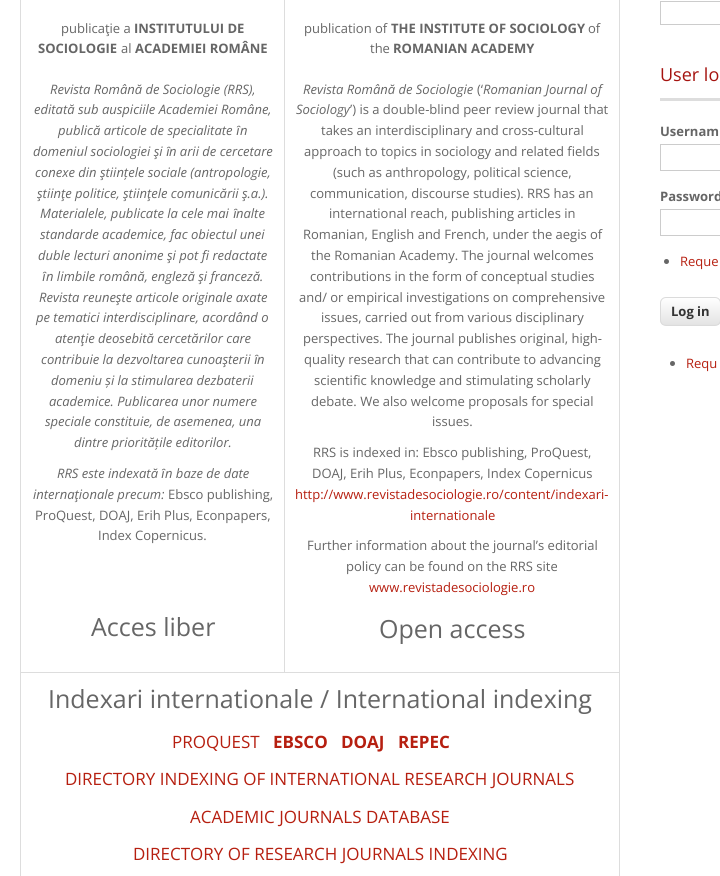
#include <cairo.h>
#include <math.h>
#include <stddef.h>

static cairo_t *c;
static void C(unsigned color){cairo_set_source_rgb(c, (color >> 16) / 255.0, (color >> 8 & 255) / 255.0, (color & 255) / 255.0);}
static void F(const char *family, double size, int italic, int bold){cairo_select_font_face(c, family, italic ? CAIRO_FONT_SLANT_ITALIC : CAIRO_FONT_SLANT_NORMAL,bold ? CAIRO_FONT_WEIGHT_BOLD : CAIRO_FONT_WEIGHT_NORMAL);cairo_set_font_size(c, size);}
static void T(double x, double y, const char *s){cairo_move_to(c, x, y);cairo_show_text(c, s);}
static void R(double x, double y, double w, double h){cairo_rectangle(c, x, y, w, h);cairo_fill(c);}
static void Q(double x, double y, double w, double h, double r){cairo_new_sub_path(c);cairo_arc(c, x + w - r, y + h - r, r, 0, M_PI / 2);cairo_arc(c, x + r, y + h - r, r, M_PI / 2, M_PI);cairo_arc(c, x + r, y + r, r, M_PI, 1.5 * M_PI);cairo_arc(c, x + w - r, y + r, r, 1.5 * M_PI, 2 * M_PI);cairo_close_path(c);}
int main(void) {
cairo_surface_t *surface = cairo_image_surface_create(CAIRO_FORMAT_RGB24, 720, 876);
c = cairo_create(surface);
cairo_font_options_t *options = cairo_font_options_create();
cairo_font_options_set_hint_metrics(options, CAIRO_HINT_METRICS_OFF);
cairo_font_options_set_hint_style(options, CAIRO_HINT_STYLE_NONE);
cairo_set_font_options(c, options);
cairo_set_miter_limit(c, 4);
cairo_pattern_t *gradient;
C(0xffffff);
cairo_paint(c);
C(0xdddddd);
R(20,0,1,876);
R(284,0,1,672);
F("Open Sans",13,0,0);
C(0x666666);
T(61,33,"publicaţie a");
F("Open Sans",13,0,1);
T(134,33,"INSTITUTULUI DE");
T(38,53,"SOCIOLOGIE");
F("Open Sans",13,0,0);
T(121,53,"al");
F("Open Sans",13,0,1);
T(135,53,"ACADEMIEI ROMÂNE");
F("Open Sans",13,1,0);
T(50,94,"Revista Română de Sociologie (RRS),");
T(34,114,"editată sub auspiciile Academiei Române,");
T(58,135,"publică articole de specialitate");
F("Liberation Sans",13,1,0);
T(236,135,"ȋ");
F("Open Sans",13,1,0);
T(240,135,"n");
T(33,156,"domeniul sociologiei şi");
F("Liberation Sans",13,1,0);
T(166,156,"ȋ");
F("Open Sans",13,1,0);
T(169,156,"n arii de cercetare");
T(35,177,"conexe din ştiințele sociale (antropologie,");
T(37,198,"ştiinţe politice, ştiinţele comunicării ş.a.).");
T(40,218,"Materialele, publicate la cele mai");
F("Liberation Sans",13,1,0);
T(233,218,"ȋ");
F("Open Sans",13,1,0);
T(236,218,"nalte");
T(40,239,"standarde academice, fac obiectul unei");
T(38,260,"duble lecturi anonime şi pot fi redactate");
F("Liberation Sans",13,1,0);
T(42,281,"ȋ");
F("Open Sans",13,1,0);
T(46,281,"n limbile română, engleză şi franceză.");
T(39,302,"Revista reuneşte articole originale axate");
T(36,322,"pe tematici interdisciplinare, acordând o");
T(55,343,"atenţie deosebită cercetărilor care");
T(41,364,"contribuie la dezvoltarea cunoaşterii");
F("Liberation Sans",13,1,0);
T(254,364,"ȋ");
F("Open Sans",13,1,0);
T(257,364,"n");
T(51,385,"domeniu și la stimularea dezbaterii");
T(49,406,"academice. Publicarea unor numere");
T(45,426,"speciale constituie, de asemenea, una");
T(74,447,"dintre prioritățile editorilor.");
T(57,478,"RRS este indexată");
F("Liberation Sans",13,1,0);
T(161,478,"ȋ");
F("Open Sans",13,1,0);
T(165,478,"n baze de date");
T(33,499,"internaţionale precum:");
F("Open Sans",13,0,0);
T(168,499,"Ebsco publishing,");
T(35,520,"ProQuest, DOAJ, Erih Plus, Econpapers,");
T(98,540,"Index Copernicus.");
F("Open Sans",25,0,0);
T(91,636,"Acces liber");
C(0xdddddd);
R(619,0,1,672);
F("Open Sans",13,0,0);
C(0x666666);
T(304,33,"publication of");
F("Open Sans",13,0,1);
T(391,33,"THE INSTITUTE OF SOCIOLOGY");
F("Open Sans",13,0,0);
T(588,33,"of");
T(370,53,"the");
F("Open Sans",13,0,1);
T(393,53,"ROMANIAN ACADEMY");
F("Open Sans",13,1,0);
T(303,94,"Revista Română de Sociologie");
F("Open Sans",13,0,0);
T(477,94,"(‘");
F("Open Sans",13,1,0);
T(483,94,"Romanian Journal of");
T(296,114,"Sociology");
F("Open Sans",13,0,0);
T(350,114,"’) is a double-blind peer review journal that");
T(321,135,"takes an interdisciplinary and cross-cultural");
T(304,156,"approach to topics in sociology and related fields");
T(333,177,"(such as anthropology, political science,");
T(310,198,"communication, discourse studies). RRS has an");
T(329,218,"international reach, publishing articles in");
T(303,239,"Romanian, English and French, under the aegis of");
T(311,260,"the Romanian Academy. The journal welcomes");
T(310,281,"contributions in the form of conceptual studies");
T(299,302,"and/ or empirical investigations on comprehensive");
T(321,322,"issues, carried out from various disciplinary");
T(303,343,"perspectives. The journal publishes original, high-");
T(304,364,"quality research that can contribute to advancing");
T(314,385,"scientific knowledge and stimulating scholarly");
T(311,406,"debate. We also welcome proposals for special");
T(432,426,"issues.");
T(313,457,"RRS is indexed in: Ebsco publishing, ProQuest,");
T(312,478,"DOAJ, Erih Plus, Econpapers, Index Copernicus");
C(0xb61f10);
T(295,499,"http://www.revistadesociologie.ro/content/indexari-");
T(410,520,"internationale");
C(0x666666);
T(307,550,"Further information about the journal’s editorial");
T(346,571,"policy can be found on the RRS site");
C(0xb61f10);
T(369,592,"www.revistadesociologie.ro");
F("Open Sans",25,0,0);
C(0x666666);
T(379,638,"Open access");
C(0xdddddd);
R(21,672,599,1);
R(619,672,1,204);
C(0x666666);
T(48,708,"Indexari internationale / International indexing");
F("Open Sans",17,0,0);
C(0xb61f10);
T(172,748,"PROQUEST");
F("Open Sans",17,0,1);
T(273,748,"EBSCO");
T(341,748,"DOAJ");
T(398,748,"REPEC");
F("Open Sans",17,0,0);
T(65,785,"DIRECTORY INDEXING OF INTERNATIONAL RESEARCH JOURNALS");
T(190,823,"ACADEMIC JOURNALS DATABASE");
T(133,860,"DIRECTORY OF RESEARCH JOURNALS INDEXING");
cairo_rectangle(c,660.5,1.5,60,23);
C(0xcccccc);
cairo_set_line_width(c,1);
cairo_stroke(c);
C(0xdddddd);
R(660,98,60,3);
F("Open Sans",18,0,0);
C(0xa5130f);
T(660,81,"User lo");
F("Open Sans",13,0,1);
C(0x666666);
T(660,136,"Usernam");
cairo_rectangle(c,660.5,144.5,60,26);
C(0xcccccc);
cairo_stroke(c);
C(0x666666);
T(660,201,"Password");
cairo_rectangle(c,660.5,209.5,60,26);
C(0xcccccc);
cairo_stroke(c);
C(0x666666);
cairo_arc(c,666.5,261.5,2.5,0,2 * M_PI);
cairo_fill(c);
F("Open Sans",13,0,0);
C(0xb61f10);
T(680,266,"Reque");
cairo_save(c);
Q(660,297,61,29,6);
cairo_clip(c);
gradient = cairo_pattern_create_linear(691,298,691,325);
cairo_pattern_add_color_stop_rgba(gradient,0,1,1,1,1);
cairo_pattern_add_color_stop_rgba(gradient,1,0.89,0.89,0.89,1);
cairo_set_source(c,gradient);
cairo_pattern_destroy(gradient);
R(660,298,60,27);
cairo_restore(c);
Q(660.5,297.5,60,28,5.5);
C(0xdbdbdb);
cairo_stroke(c);
F("Open Sans",13,0,1);
C(0x333333);
T(671,316,"Log in");
C(0x666666);
cairo_new_path(c);
cairo_arc(c,672.5,363.5,2.5,0,2 * M_PI);
cairo_fill(c);
F("Open Sans",13,0,0);
C(0xb61f10);
T(686,368,"Requ");
cairo_surface_write_to_png(surface, "o.png");
cairo_font_options_destroy(options);
cairo_destroy(c);
cairo_surface_destroy(surface);
return 0;
}
